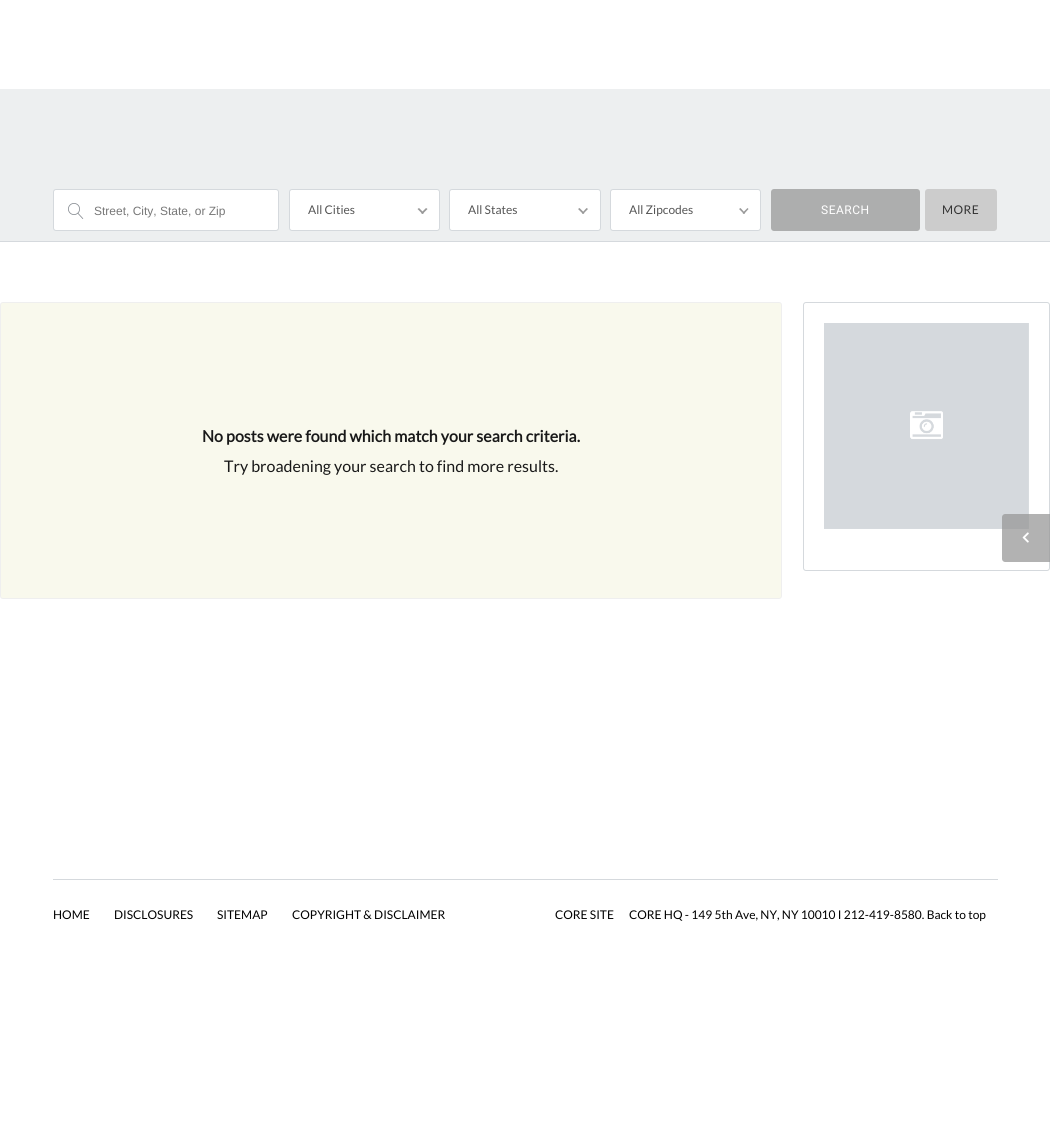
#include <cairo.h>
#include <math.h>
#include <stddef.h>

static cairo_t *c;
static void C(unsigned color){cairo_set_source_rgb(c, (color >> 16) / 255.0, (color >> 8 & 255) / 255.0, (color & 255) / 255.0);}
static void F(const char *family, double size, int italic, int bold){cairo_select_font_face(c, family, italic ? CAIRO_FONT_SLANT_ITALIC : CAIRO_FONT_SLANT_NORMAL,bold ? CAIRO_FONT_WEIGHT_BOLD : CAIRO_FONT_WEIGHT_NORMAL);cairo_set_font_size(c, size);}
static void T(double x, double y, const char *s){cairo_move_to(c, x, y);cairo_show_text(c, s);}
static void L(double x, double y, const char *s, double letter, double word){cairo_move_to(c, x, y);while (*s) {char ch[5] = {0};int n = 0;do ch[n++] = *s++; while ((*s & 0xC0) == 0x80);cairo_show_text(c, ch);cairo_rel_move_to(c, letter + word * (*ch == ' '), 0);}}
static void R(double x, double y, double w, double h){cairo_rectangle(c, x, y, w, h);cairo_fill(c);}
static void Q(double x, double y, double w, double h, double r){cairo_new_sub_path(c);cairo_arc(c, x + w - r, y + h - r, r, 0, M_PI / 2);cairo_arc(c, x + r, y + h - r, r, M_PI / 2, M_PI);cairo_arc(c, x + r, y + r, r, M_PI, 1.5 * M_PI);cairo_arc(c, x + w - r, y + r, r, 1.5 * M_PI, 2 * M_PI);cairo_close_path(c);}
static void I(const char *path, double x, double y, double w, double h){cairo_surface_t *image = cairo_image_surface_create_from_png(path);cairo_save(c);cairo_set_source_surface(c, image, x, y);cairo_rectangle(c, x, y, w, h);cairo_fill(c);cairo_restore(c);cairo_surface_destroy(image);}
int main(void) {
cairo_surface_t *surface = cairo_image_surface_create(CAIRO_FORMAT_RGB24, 1050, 1143);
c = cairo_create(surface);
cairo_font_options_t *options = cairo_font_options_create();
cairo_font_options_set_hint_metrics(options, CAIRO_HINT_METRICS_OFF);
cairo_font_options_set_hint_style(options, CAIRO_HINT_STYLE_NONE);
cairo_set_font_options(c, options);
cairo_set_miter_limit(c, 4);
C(0xffffff);
cairo_paint(c);
C(0xedeff0);
R(0,89,1050,152);
C(0xd5d9dd);
R(0,241,1050,1);
C(0xffffff);
Q(53.5,189.5,225,41,2.5);
cairo_fill_preserve(c);
C(0xd5d9dd);
cairo_set_line_width(c,1);
cairo_stroke(c);
I("1.png",68,203,16,16);
F("Liberation Sans",12,0,0);
C(0x777777);
T(94,215,"Street, City, State, or Zip");
C(0xffffff);
Q(289.5,189.5,150,41,2.5);
cairo_fill_preserve(c);
C(0xd5d9dd);
cairo_stroke(c);
F("Lato",12,0,0);
C(0x555555);
T(308,214,"All Cities");
C(0x999999);
cairo_new_path(c);
cairo_move_to(c,426,208);
cairo_line_to(c,427.5,209);
cairo_line_to(c,422.5,214);
cairo_line_to(c,421,213);
cairo_close_path(c);
cairo_fill(c);
cairo_new_path(c);
cairo_move_to(c,419,208);
cairo_line_to(c,424,213);
cairo_line_to(c,422.5,214);
cairo_line_to(c,417.5,209);
cairo_close_path(c);
cairo_fill(c);
C(0xffffff);
Q(449.5,189.5,151,41,2.5);
cairo_fill_preserve(c);
C(0xd5d9dd);
cairo_stroke(c);
C(0x555555);
T(468,214,"All States");
C(0x999999);
cairo_new_path(c);
cairo_move_to(c,586.5,208);
cairo_line_to(c,588,209);
cairo_line_to(c,583,214);
cairo_line_to(c,582,213);
cairo_close_path(c);
cairo_fill(c);
cairo_new_path(c);
cairo_move_to(c,579.5,208);
cairo_line_to(c,584.5,213);
cairo_line_to(c,583,214);
cairo_line_to(c,578,209);
cairo_close_path(c);
cairo_fill(c);
C(0xffffff);
Q(610.5,189.5,150,41,2.5);
cairo_fill_preserve(c);
C(0xd5d9dd);
cairo_stroke(c);
C(0x555555);
T(629,214,"All Zipcodes");
C(0x999999);
cairo_new_path(c);
cairo_move_to(c,747.5,208);
cairo_line_to(c,748.5,209);
cairo_line_to(c,744,214);
cairo_line_to(c,742.5,213);
cairo_close_path(c);
cairo_fill(c);
cairo_new_path(c);
cairo_move_to(c,740.5,208);
cairo_line_to(c,745,213);
cairo_line_to(c,744,214);
cairo_line_to(c,739,209);
cairo_close_path(c);
cairo_fill(c);
C(0xadaeae);
Q(771,189,149,42,3);
cairo_fill(c);
F("Roboto",12,0,0);
C(0xffffff);
L(821,214,"SEARCH",.5,0);
C(0xcccccc);
Q(925,189,72,42,3);
cairo_fill(c);
F("Lato",12,0,0);
C(0x333333);
L(942,214,"MORE",.5,0);
C(0xf9f9ed);
Q(.5,302.5,781,296,2.5);
cairo_fill_preserve(c);
C(0xefefef);
cairo_stroke(c);
F("Lato",16,0,1);
C(0x191919);
T(202,442,"No posts were found which match your search criteria.");
F("Lato",16,0,0);
T(224,472,"Try broadening your search to find more results.");
Q(803.5,302.5,246,268,2.5);
C(0xd5d9dd);
cairo_stroke(c);
I("2.png",824,323,205,206);
cairo_set_source_rgba(c,0.588,0.588,0.588,0.73);
cairo_new_path(c);
cairo_move_to(c,1005,514);
cairo_line_to(c,1050,514);
cairo_line_to(c,1050,562);
cairo_line_to(c,1005,562);
cairo_curve_to(c,1003.5,562,1002,560.5,1002,559);
cairo_line_to(c,1002,517);
cairo_curve_to(c,1002,515.5,1003.5,514,1005,514);
cairo_close_path(c);
cairo_fill(c);
I("3.png",1022,532,7,11);
C(0xd5d9dd);
R(53,879,945,1);
F("Lato",12,0,0);
C(0x000000);
T(53,919,"HOME");
T(114,919,"DISCLOSURES");
T(217,919,"SITEMAP");
T(292,919,"COPYRIGHT & DISCLAIMER");
T(555,919,"CORE SITE");
T(629,919,"CORE HQ - 149 5th Ave, NY, NY 10010 I 212-419-8580. Back to top");
cairo_surface_write_to_png(surface, "o.png");
cairo_font_options_destroy(options);
cairo_destroy(c);
cairo_surface_destroy(surface);
return 0;
}
